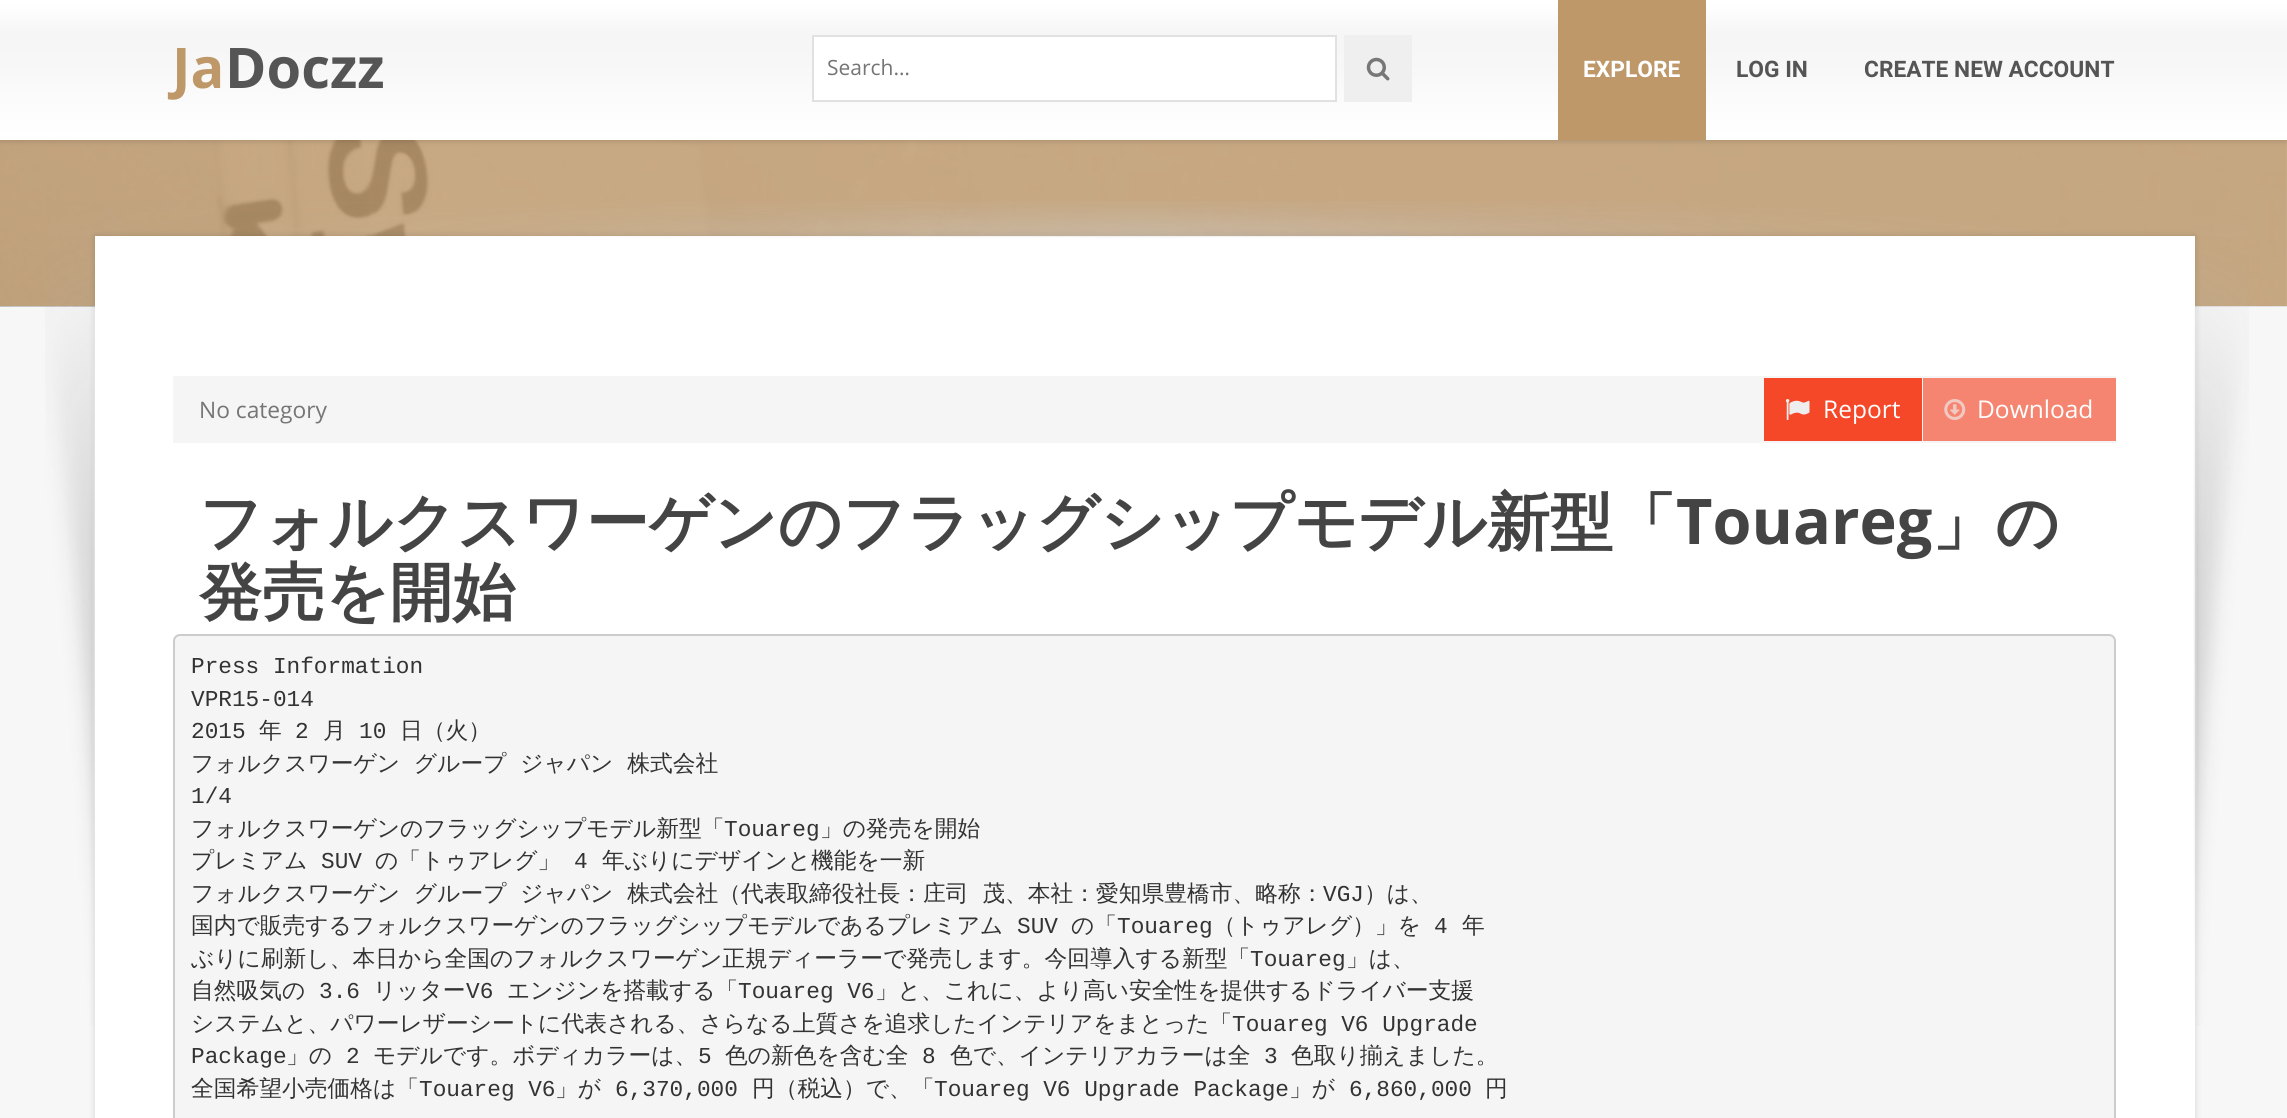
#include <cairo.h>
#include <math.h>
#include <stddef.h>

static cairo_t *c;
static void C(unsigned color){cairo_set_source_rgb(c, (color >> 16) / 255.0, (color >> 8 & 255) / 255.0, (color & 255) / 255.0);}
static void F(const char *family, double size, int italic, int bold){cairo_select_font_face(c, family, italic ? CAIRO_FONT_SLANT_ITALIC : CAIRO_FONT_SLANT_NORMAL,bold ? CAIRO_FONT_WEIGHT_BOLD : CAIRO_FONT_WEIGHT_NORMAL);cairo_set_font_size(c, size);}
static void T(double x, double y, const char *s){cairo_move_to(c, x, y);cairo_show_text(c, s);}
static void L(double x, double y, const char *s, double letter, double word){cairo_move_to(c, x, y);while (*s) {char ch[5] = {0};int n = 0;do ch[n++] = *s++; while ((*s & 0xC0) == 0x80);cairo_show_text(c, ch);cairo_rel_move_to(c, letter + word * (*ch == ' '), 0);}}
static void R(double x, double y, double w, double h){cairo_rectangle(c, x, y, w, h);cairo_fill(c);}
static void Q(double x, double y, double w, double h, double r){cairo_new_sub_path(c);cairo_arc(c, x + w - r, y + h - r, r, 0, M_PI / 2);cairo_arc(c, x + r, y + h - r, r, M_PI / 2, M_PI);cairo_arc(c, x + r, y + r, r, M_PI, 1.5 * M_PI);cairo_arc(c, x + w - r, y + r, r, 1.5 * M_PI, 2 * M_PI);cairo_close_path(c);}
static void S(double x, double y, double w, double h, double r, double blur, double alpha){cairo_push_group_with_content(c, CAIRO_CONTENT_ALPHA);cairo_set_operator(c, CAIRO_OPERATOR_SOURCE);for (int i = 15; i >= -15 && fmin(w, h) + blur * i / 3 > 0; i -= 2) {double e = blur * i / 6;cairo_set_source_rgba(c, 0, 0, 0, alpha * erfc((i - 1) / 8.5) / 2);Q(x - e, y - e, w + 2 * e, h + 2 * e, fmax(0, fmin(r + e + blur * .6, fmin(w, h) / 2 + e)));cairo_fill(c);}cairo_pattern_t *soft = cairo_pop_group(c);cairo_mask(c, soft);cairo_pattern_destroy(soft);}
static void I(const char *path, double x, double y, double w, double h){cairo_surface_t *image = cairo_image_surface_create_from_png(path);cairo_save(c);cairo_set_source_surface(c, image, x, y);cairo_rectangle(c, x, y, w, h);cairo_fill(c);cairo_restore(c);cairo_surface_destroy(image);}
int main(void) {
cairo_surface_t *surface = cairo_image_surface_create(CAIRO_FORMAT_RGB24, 2287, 1118);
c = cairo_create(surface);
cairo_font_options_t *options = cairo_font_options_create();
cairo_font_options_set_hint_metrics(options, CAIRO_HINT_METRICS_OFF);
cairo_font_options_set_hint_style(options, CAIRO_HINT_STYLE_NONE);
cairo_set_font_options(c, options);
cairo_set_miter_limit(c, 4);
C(0xf7f7f7);
cairo_paint(c);
I("3.png",0,140,2287,167);
C(0x000000);
S(0,2,2287,140,0,2.5,.12);
I("1.png",0,0,2287,140);
F("Open Sans",56,0,1);
C(0xbe9869);
T(172,88,"Ja");
C(0x555555);
T(225,88,"Doczz");
C(0xffffff);
cairo_rectangle(c,813,36,523,65);
cairo_fill_preserve(c);
C(0xe1e1e1);
cairo_stroke(c);
F("Open Sans",21,0,0);
C(0x757575);
T(827,75,"Search…");
C(0xefefef);
R(1344,35,68,67);
I("2.png",1366,57,24,24);
C(0xbe9869);
R(1558,0,148,140);
F("Roboto",22.75,0,1);
C(0xffffff);
T(1583,77,"EXPLORE");
C(0x555555);
T(1736,77,"LOG IN");
T(1864,77,"CREATE NEW ACCOUNT");
C(0x000000);
S(95,236,2100,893,0,3.5,.15);
C(0xffffff);
R(95,236,2100,882);
I("4.png",45,201,2204,825);
C(0xf5f5f5);
R(173,376,1943,67);
F("Open Sans",22.75,0,0);
C(0x757575);
T(199,418,"No category");
C(0xf54828);
R(1764,378,158,63);
I("5.png",1785,399,25,21);
F("Open Sans",24.5,0,0);
C(0xffffff);
T(1823,418,"Report");
C(0xf58570);
R(1923,378,193,63);
I("6.png",1944,399,22,21);
C(0xffffff);
T(1977,418,"Download");
F("WenQuanYi Zen Hei",63,0,1);
C(0x444444);
T(199,544,"フォルクスワーゲンのフラッグシップモデル新型「");
F("Open Sans",63,0,1);
T(1676,544,"Touareg");
F("WenQuanYi Zen Hei",63,0,1);
T(1932,544,"」の");
T(199,614,"発売を開始");
C(0xf5f5f5);
Q(174,635,1941,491,6);
cairo_fill_preserve(c);
C(0xcccccc);
cairo_stroke(c);
F("Liberation Mono",22.75,0,0);
C(0x333333);
T(191,673,"Press Information");
T(191,706,"VPR15-014");
T(191,738,"2015");
F("WenQuanYi Zen Hei Medium",22.75,0,0);
T(259,738,"年");
F("Liberation Mono",22.75,0,0);
T(295,738,"2");
F("WenQuanYi Zen Hei Medium",22.75,0,0);
T(323,738,"月");
F("Liberation Mono",22.75,0,0);
T(359,738,"10");
F("WenQuanYi Zen Hei Medium",22.75,0,0);
T(400,738,"日（火）");
L(191,771,"フォルクスワーゲン グループ ジャパン 株式会社",0,7);
F("Liberation Mono",22.75,0,0);
T(191,803,"1/4");
F("WenQuanYi Zen Hei Medium",22.75,0,0);
T(191,836,"フォルクスワーゲンのフラッグシップモデル新型「");
F("Liberation Mono",22.75,0,0);
T(724,836,"Touareg");
F("WenQuanYi Zen Hei Medium",22.75,0,0);
T(820,836,"」の発売を開始");
T(191,868,"プレミアム");
F("Liberation Mono",22.75,0,0);
T(321,868,"SUV");
F("WenQuanYi Zen Hei Medium",22.75,0,0);
T(375,868,"の「トゥアレグ」");
F("Liberation Mono",22.75,0,0);
T(574,868,"4");
F("WenQuanYi Zen Hei Medium",22.75,0,0);
T(602,868,"年ぶりにデザインと機能を一新");
L(191,901,"フォルクスワーゲン グループ ジャパン 株式会社（代表取締役社長：庄司 茂、本社：愛知県豊橋市、略称：",0,7);
F("Liberation Mono",22.75,0,0);
T(1323,901,"VGJ");
F("WenQuanYi Zen Hei Medium",22.75,0,0);
T(1364,901,"）は、");
T(191,933,"国内で販売するフォルクスワーゲンのフラッグシップモデルであるプレミアム");
F("Liberation Mono",22.75,0,0);
T(1017,933,"SUV");
F("WenQuanYi Zen Hei Medium",22.75,0,0);
T(1071,933,"の「");
F("Liberation Mono",22.75,0,0);
T(1117,933,"Touareg");
F("WenQuanYi Zen Hei Medium",22.75,0,0);
T(1213,933,"（トゥアレグ）」を");
F("Liberation Mono",22.75,0,0);
T(1434,933,"4");
F("WenQuanYi Zen Hei Medium",22.75,0,0);
T(1462,933,"年");
T(191,966,"ぶりに刷新し、本日から全国のフォルクスワーゲン正規ディーラーで発売します。今回導入する新型「");
F("Liberation Mono",22.75,0,0);
T(1250,966,"Touareg");
F("WenQuanYi Zen Hei Medium",22.75,0,0);
T(1346,966,"」は、");
T(191,998,"自然吸気の");
F("Liberation Mono",22.75,0,0);
T(319,998,"3.6");
F("WenQuanYi Zen Hei Medium",22.75,0,0);
T(373,998,"リッター");
F("Liberation Mono",22.75,0,0);
T(466,998,"V6");
F("WenQuanYi Zen Hei Medium",22.75,0,0);
T(507,998,"エンジンを搭載する「");
F("Liberation Mono",22.75,0,0);
T(738,998,"Touareg V6");
F("WenQuanYi Zen Hei Medium",22.75,0,0);
T(875,998,"」と、これに、より高い安全性を提供するドライバー支援");
T(191,1031,"システムと、パワーレザーシートに代表される、さらなる上質さを追求したインテリアをまとった「");
F("Liberation Mono",22.75,0,0);
T(1232,1031,"Touareg V6 Upgrade");
T(191,1063,"Package");
F("WenQuanYi Zen Hei Medium",22.75,0,0);
T(286,1063,"」の");
F("Liberation Mono",22.75,0,0);
T(346,1063,"2");
F("WenQuanYi Zen Hei Medium",22.75,0,0);
T(373,1063,"モデルです。ボディカラーは、");
F("Liberation Mono",22.75,0,0);
T(698,1063,"5");
F("WenQuanYi Zen Hei Medium",22.75,0,0);
T(725,1063,"色の新色を含む全");
F("Liberation Mono",22.75,0,0);
T(922,1063,"8");
F("WenQuanYi Zen Hei Medium",22.75,0,0);
T(950,1063,"色で、インテリアカラーは全");
F("Liberation Mono",22.75,0,0);
T(1264,1063,"3");
F("WenQuanYi Zen Hei Medium",22.75,0,0);
T(1291,1063,"色取り揃えました。");
T(191,1096,"全国希望小売価格は「");
F("Liberation Mono",22.75,0,0);
T(419,1096,"Touareg V6");
F("WenQuanYi Zen Hei Medium",22.75,0,0);
T(555,1096,"」が");
F("Liberation Mono",22.75,0,0);
T(615,1096,"6,370,000");
F("WenQuanYi Zen Hei Medium",22.75,0,0);
T(752,1096,"円（税込）で、「");
F("Liberation Mono",22.75,0,0);
T(934,1096,"Touareg V6 Upgrade Package");
F("WenQuanYi Zen Hei Medium",22.75,0,0);
T(1289,1096,"」が");
F("Liberation Mono",22.75,0,0);
T(1349,1096,"6,860,000");
F("WenQuanYi Zen Hei Medium",22.75,0,0);
T(1485,1096,"円");
cairo_surface_write_to_png(surface, "o.png");
cairo_font_options_destroy(options);
cairo_destroy(c);
cairo_surface_destroy(surface);
return 0;
}
